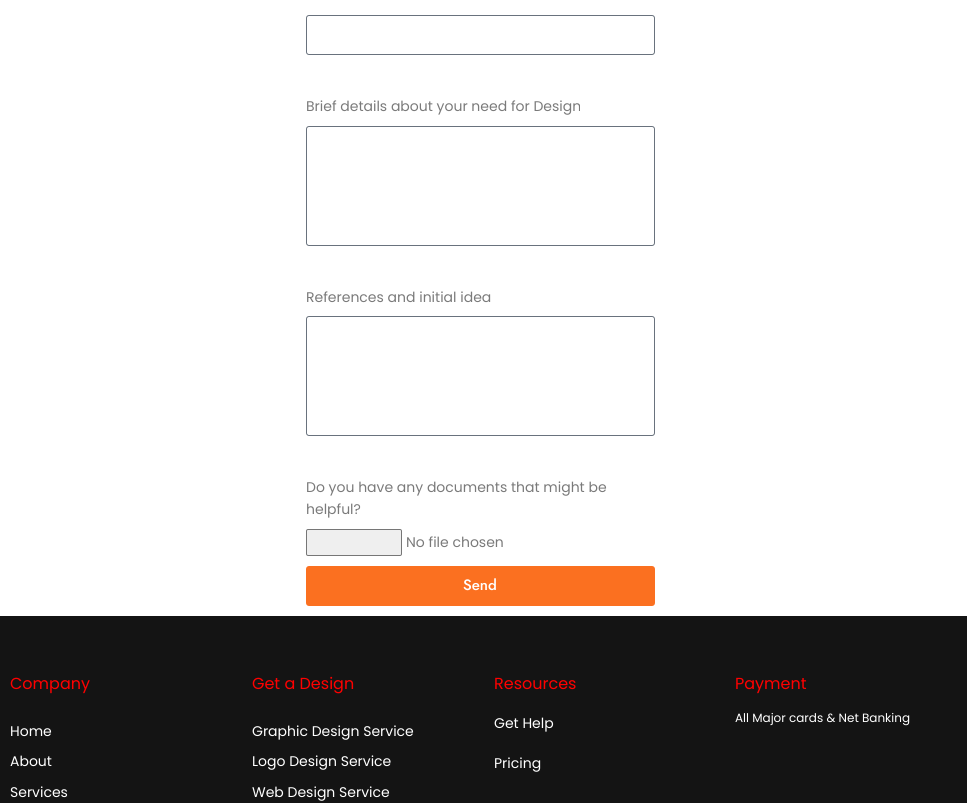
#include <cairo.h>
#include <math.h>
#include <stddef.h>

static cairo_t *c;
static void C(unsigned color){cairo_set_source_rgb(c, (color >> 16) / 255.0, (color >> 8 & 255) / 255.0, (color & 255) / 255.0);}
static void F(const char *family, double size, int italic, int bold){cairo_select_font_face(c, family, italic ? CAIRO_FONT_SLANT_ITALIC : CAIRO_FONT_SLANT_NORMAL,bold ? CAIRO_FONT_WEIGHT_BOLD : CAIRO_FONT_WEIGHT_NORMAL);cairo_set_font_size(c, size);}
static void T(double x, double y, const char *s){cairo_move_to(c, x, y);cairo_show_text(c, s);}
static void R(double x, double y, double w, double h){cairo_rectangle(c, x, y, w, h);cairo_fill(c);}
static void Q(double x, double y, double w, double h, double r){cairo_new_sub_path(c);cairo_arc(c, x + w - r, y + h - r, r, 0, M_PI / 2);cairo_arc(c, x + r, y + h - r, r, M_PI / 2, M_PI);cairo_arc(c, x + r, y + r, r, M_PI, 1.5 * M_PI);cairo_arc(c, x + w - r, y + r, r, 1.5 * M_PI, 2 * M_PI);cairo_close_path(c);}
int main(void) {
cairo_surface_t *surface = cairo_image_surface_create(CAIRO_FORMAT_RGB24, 967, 803);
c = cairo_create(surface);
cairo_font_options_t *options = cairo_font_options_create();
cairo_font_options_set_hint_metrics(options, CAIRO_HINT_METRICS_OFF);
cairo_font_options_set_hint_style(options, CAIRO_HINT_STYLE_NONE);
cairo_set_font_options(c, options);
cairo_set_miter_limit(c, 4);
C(0xffffff);
cairo_paint(c);
Q(306.5,15.5,348,39,2.5);
C(0x69727d);
cairo_set_line_width(c,1);
cairo_stroke(c);
F("Poppins",14,0,0);
C(0x7a7a7a);
T(306,111,"Brief details about your need for Design");
Q(306.5,126.5,348,119,2.5);
C(0x69727d);
cairo_stroke(c);
C(0x7a7a7a);
T(306,302,"References and initial idea");
Q(306.5,316.5,348,119,2.5);
C(0x69727d);
cairo_stroke(c);
C(0x7a7a7a);
T(306,492,"Do you have any documents that might be");
T(306,514,"helpful?");
C(0xefefef);
Q(306.5,529.5,95,26,1.5);
cairo_fill_preserve(c);
C(0x767676);
cairo_stroke(c);
C(0x7a7a7a);
T(406,547,"No file chosen");
C(0xfb7020);
Q(306,566,349,40,3);
cairo_fill(c);
F("Jost Medium",15,0,0);
C(0xffffff);
T(463,590,"Send");
C(0x141414);
R(0,616,967,187);
F("Poppins",16,0,0);
C(0xff0000);
T(10,689,"Company");
F("Poppins",14,0,0);
C(0xffffff);
T(10,736,"Home");
T(10,766,"About");
T(10,797,"Services");
F("Poppins",16,0,0);
C(0xff0000);
T(252,689,"Get a Design");
F("Poppins",14,0,0);
C(0xffffff);
T(252,736,"Graphic Design Service");
T(252,766,"Logo Design Service");
T(252,797,"Web Design Service");
F("Poppins",16,0,0);
C(0xff0000);
T(494,689,"Resources");
F("Poppins",14,0,0);
C(0xffffff);
T(494,728,"Get Help");
T(494,768,"Pricing");
F("Poppins",16,0,0);
C(0xff0000);
T(735,689,"Payment");
F("Poppins",12,0,0);
C(0xffffff);
T(735,722,"All Major cards & Net Banking");
cairo_surface_write_to_png(surface, "o.png");
cairo_font_options_destroy(options);
cairo_destroy(c);
cairo_surface_destroy(surface);
return 0;
}
